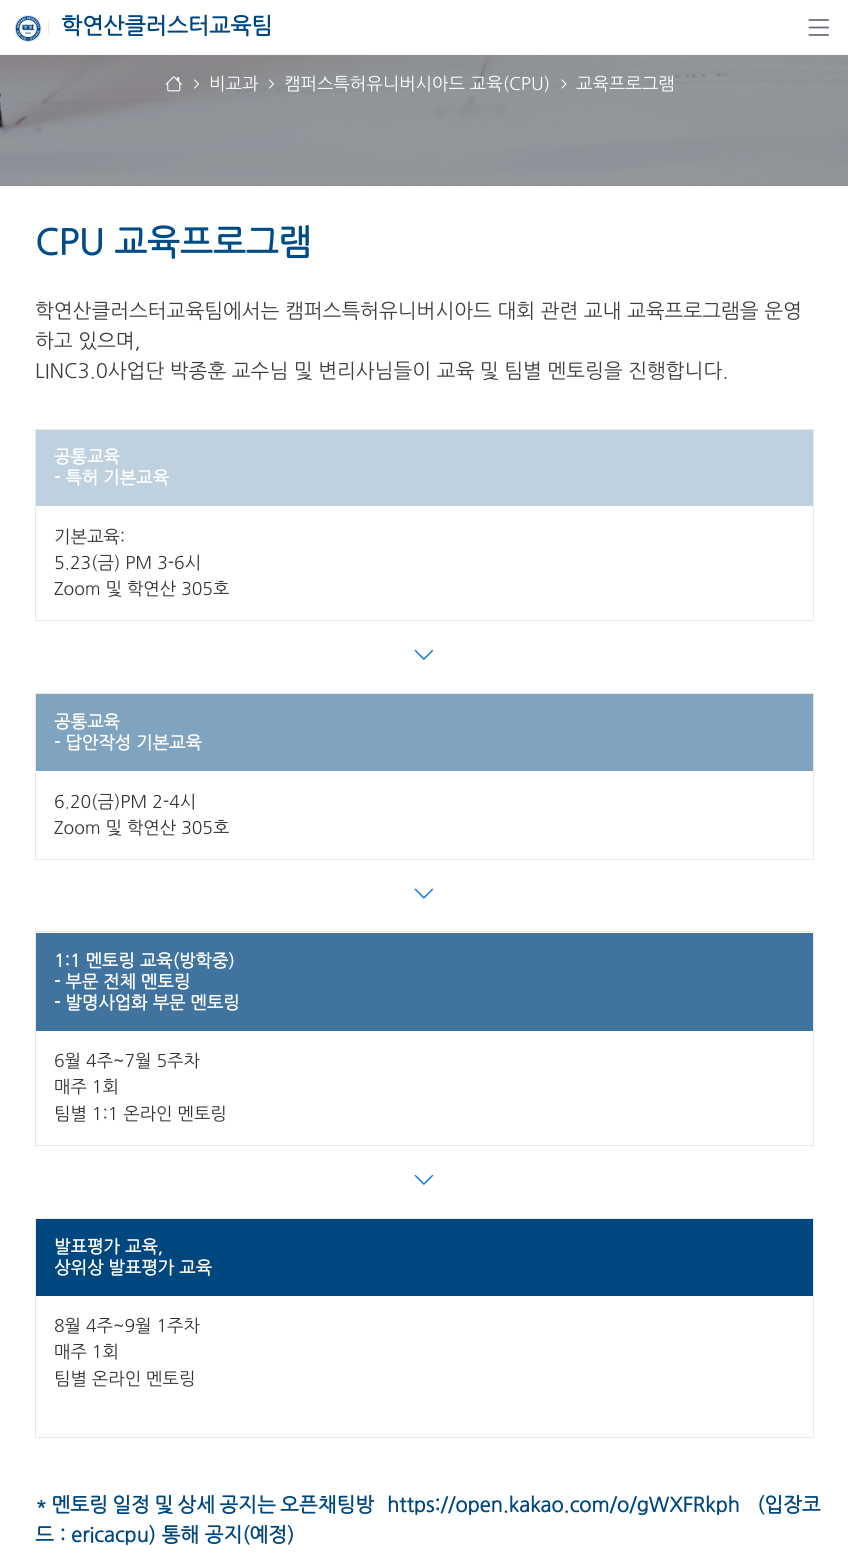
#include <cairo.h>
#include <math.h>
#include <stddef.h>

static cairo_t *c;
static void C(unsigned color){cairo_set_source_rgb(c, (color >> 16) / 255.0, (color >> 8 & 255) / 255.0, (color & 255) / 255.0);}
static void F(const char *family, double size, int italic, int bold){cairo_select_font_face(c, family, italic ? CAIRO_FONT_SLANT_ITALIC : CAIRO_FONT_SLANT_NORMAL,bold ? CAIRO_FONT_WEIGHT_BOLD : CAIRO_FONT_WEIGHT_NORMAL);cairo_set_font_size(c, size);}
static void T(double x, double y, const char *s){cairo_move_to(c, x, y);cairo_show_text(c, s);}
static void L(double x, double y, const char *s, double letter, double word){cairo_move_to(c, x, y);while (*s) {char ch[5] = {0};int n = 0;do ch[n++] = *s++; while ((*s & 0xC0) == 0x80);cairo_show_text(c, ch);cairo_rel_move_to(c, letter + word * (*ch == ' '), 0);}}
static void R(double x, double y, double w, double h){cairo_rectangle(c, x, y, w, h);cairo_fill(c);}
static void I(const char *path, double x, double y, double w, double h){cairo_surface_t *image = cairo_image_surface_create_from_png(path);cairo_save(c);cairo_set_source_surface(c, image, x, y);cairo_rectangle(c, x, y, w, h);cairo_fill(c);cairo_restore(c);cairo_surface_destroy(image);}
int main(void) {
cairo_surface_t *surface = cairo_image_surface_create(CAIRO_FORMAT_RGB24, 848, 1559);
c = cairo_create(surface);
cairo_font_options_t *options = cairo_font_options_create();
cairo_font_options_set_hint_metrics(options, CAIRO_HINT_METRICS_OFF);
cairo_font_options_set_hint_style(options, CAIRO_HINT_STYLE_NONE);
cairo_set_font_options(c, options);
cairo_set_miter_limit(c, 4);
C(0xffffff);
cairo_paint(c);
C(0xf7f8f9);
R(0,54,848,1);
I("1.png",15,15,27,27);
C(0xe7e7ed);
R(48,21,1,13);
F("NanumGothic",22.5,0,1);
C(0x00467f);
T(61,34,"학연산클러스터교육팀");
I("2.png",808,19,21,17);
I("3.png",0,55,848,131);
I("4.png",165,76,17,16);
I("5.png",194,79,5,10);
F("NanumGothic",17.5,0,0);
C(0xffffff);
T(209,90,"비교과");
I("6.png",269,79,5,10);
T(284,90,"캠퍼스특허유니버시아드 교육(CPU)");
I("7.png",561,79,6,10);
T(576,90,"교육프로그램");
F("NanumGothic",35,0,1);
C(0x004c86);
T(35,255,"CPU 교육프로그램");
F("NanumGothic",20,0,0);
C(0x3f3d42);
T(35,318,"학연산클러스터교육팀에서는 캠퍼스특허유니버시아드 대회 관련 교내 교육프로그램을 운영");
T(35,348,"하고 있으며,");
T(35,378,"LINC3.0사업단 박종훈 교수님 및 변리사님들이 교육 및 팀별 멘토링을 진행합니다.");
cairo_rectangle(c,35.5,429.5,778,191);
C(0xe7e7ed);
cairo_set_line_width(c,1);
cairo_stroke(c);
C(0xbfd1df);
R(36,430,777,76);
F("NanumGothic",17.5,0,1);
C(0xffffff);
T(54,463,"공통교육");
T(54,484,"- 특허 기본교육");
F("NanumGothic",17.5,0,0);
C(0x333333);
T(54,543,"기본교육:");
T(54,569,"5.23(금) PM 3-6시");
T(54,595,"Zoom 및 학연산 305호");
I("8.png",414,649,20,11);
cairo_rectangle(c,35.5,693.5,778,166);
C(0xe7e7ed);
cairo_stroke(c);
C(0x80a3bf);
R(36,694,777,77);
F("NanumGothic",17.5,0,1);
C(0xffffff);
T(54,728,"공통교육");
T(54,749,"- 답안작성 기본교육");
F("NanumGothic",17.5,0,0);
C(0x333333);
T(54,808,"6.20(금)PM 2-4시");
T(54,834,"Zoom 및 학연산 305호");
I("9.png",414,888,20,11);
cairo_rectangle(c,35.5,931.5,778,214);
C(0xe7e7ed);
cairo_stroke(c);
C(0x40749f);
R(36,933,777,98);
F("NanumGothic",17.5,0,1);
C(0xffffff);
T(54,967,"1:1 멘토링 교육(방학중)");
T(54,988,"- 부문 전체 멘토링");
T(54,1009,"- 발명사업화 부문 멘토링");
F("NanumGothic",17.5,0,0);
C(0x333333);
T(54,1067,"6월 4주~7월 5주차");
T(54,1093,"매주 1회");
T(54,1120,"팀별 1:1 온라인 멘토링");
I("8.png",414,1174,20,11);
cairo_rectangle(c,35.5,1218.5,778,219);
C(0xe7e7ed);
cairo_stroke(c);
C(0x00467f);
R(36,1219,777,77);
F("NanumGothic",17.5,0,1);
C(0xffffff);
T(54,1253,"발표평가 교육,");
T(54,1274,"상위상 발표평가 교육");
F("NanumGothic",17.5,0,0);
C(0x333333);
T(54,1332,"8월 4주~9월 1주차");
T(54,1358,"매주 1회");
T(54,1385,"팀별 온라인 멘토링");
F("NanumGothic",20,0,1);
C(0x00467f);
L(35,1512,"* 멘토링 일정 및 상세 공지는 오픈채팅방",0,-1.25);
T(387,1512,"https://open.kakao.com/o/gWXFRkph");
T(757,1512,"(입장코");
T(35,1542,"드 : ericacpu) 통해 공지(예정)");
cairo_surface_write_to_png(surface, "o.png");
cairo_font_options_destroy(options);
cairo_destroy(c);
cairo_surface_destroy(surface);
return 0;
}
